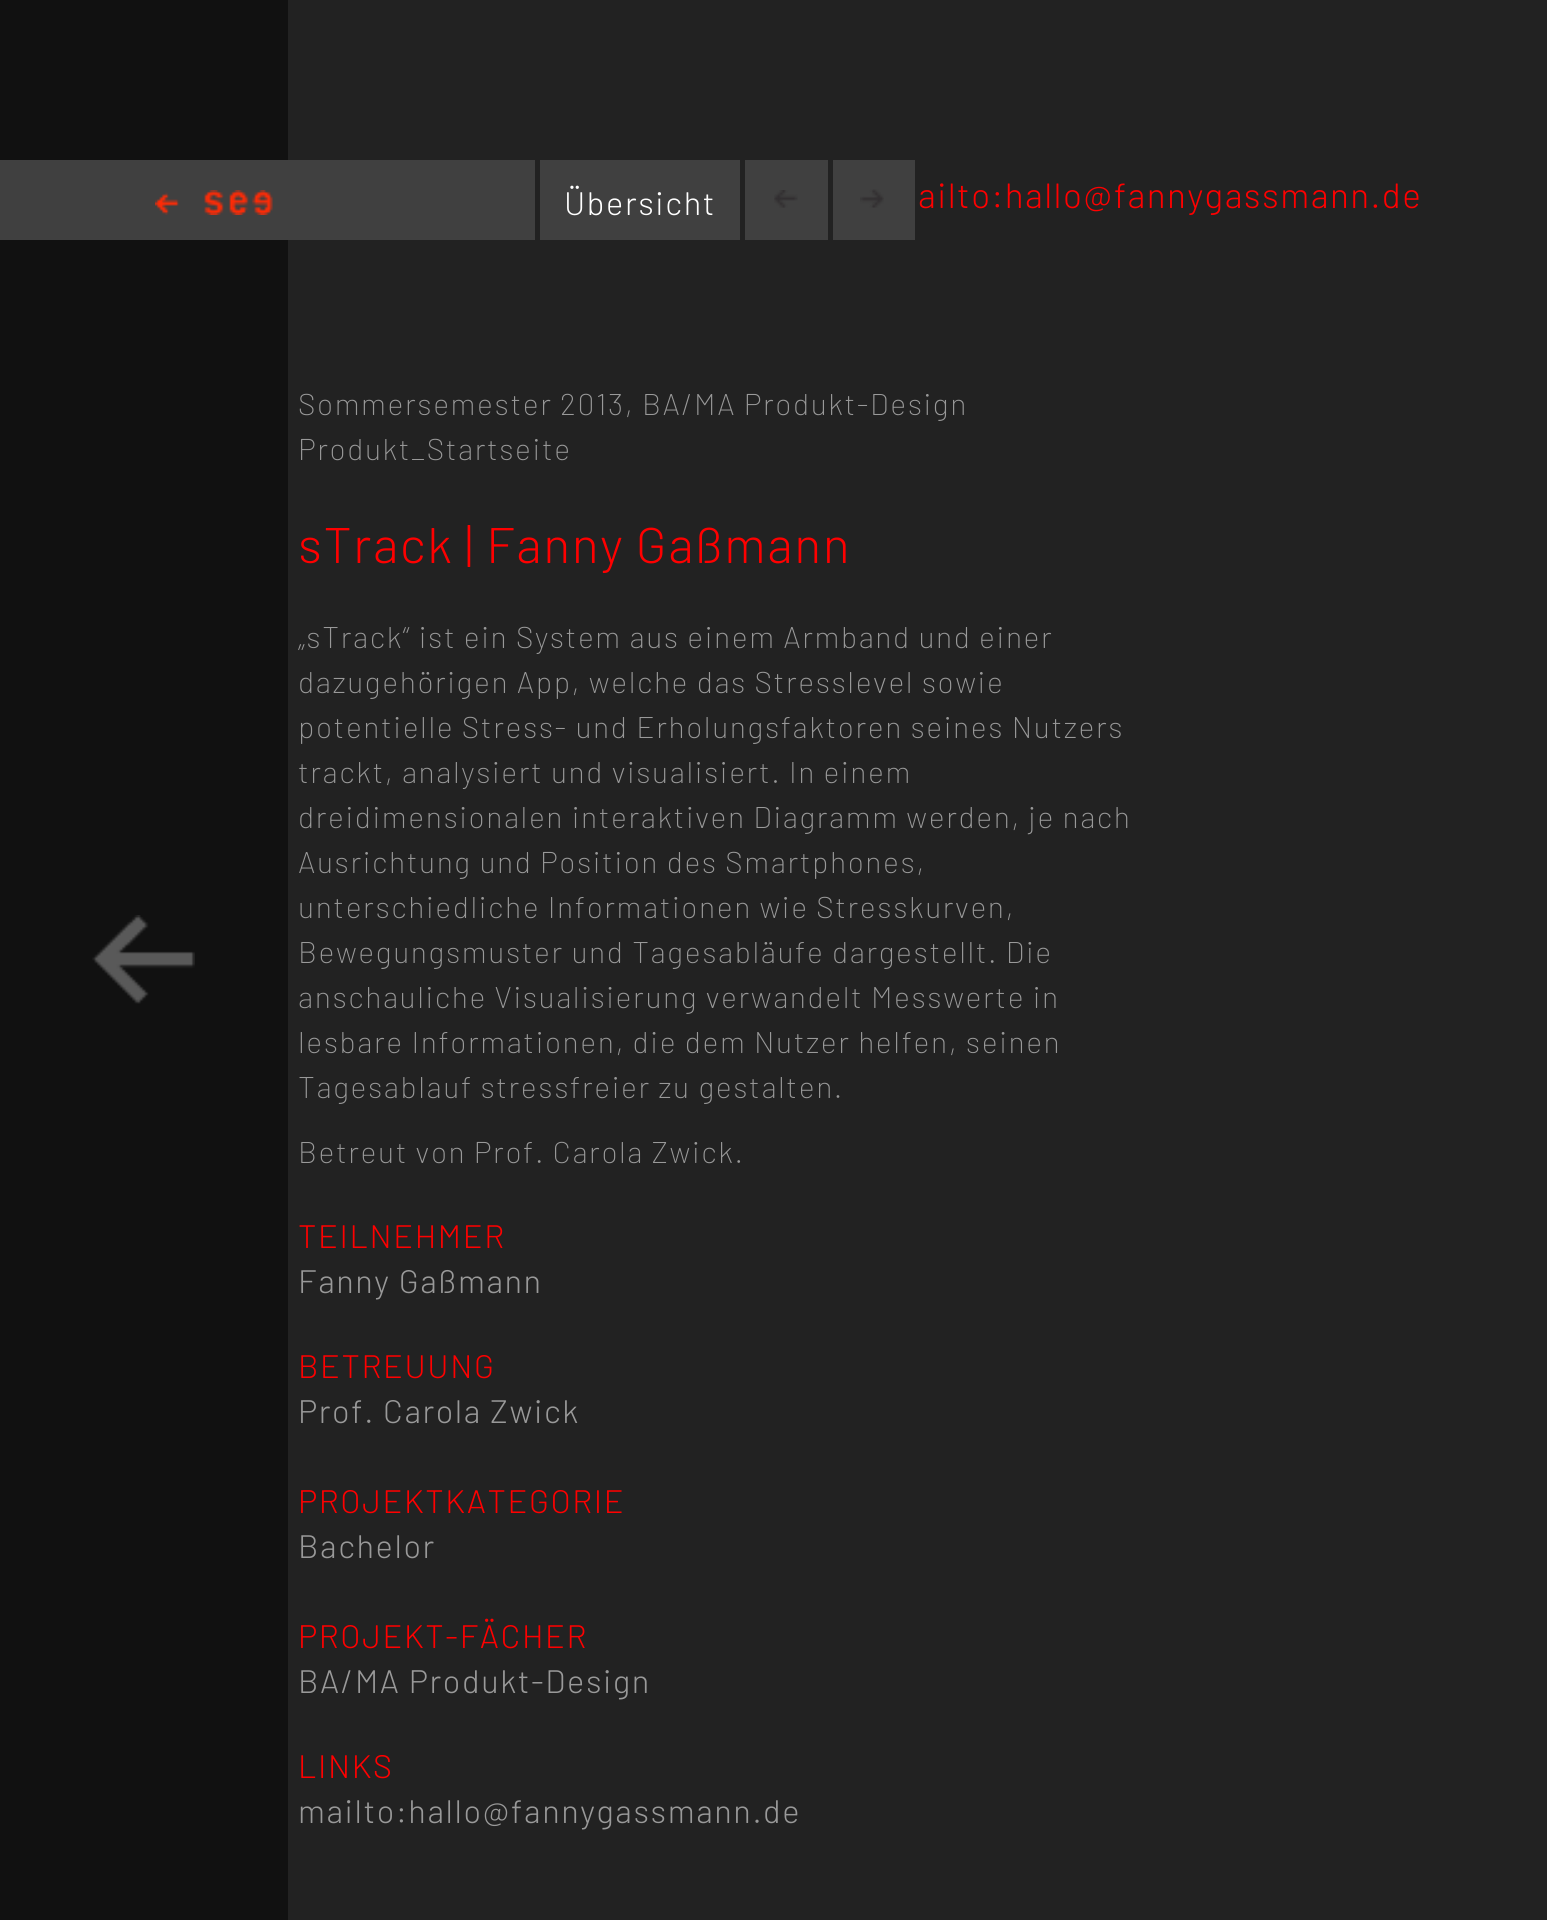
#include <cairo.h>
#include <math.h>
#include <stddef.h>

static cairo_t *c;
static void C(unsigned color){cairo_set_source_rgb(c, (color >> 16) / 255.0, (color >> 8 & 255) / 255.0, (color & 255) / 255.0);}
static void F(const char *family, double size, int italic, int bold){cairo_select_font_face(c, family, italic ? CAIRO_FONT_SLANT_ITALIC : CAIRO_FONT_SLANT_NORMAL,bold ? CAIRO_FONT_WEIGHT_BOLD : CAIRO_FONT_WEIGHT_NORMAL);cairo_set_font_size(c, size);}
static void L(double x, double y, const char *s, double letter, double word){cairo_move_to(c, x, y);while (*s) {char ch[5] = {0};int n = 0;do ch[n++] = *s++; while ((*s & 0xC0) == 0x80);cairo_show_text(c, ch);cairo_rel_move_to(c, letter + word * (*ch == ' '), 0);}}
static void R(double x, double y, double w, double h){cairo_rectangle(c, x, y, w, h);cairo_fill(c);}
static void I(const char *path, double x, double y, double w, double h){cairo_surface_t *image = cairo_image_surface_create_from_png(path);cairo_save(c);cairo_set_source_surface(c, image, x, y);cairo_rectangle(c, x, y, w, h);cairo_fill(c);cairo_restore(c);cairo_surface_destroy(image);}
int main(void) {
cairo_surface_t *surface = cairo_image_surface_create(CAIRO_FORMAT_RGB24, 1547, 1920);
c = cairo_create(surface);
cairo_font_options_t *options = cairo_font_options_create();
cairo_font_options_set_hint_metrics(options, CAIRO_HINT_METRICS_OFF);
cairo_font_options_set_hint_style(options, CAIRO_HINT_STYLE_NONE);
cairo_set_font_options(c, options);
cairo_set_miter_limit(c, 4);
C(0x222222);
cairo_paint(c);
C(0x111111);
R(0,0,288,1920);
I("1.png",92,915,103,89);
C(0x404040);
R(0,160,535,80);
I("2.png",155,190,118,25);
R(540,160,200,80);
F("Barlow Light",32.5,0,0);
C(0xffffff);
L(564,215,"Übersicht",1.62,0);
C(0x404040);
R(745,160,83,80);
I("3.png",774,190,24,18);
R(833,160,82,80);
I("4.png",860,189,24,19);
F("Barlow Light",35,0,0);
C(0xff0000);
L(918,208,"ailto:hallo@fannygassmann.de",1.5,0);
F("Barlow ExtraLight",30,0,0);
C(0x999999);
L(298,415,"Sommersemester 2013, BA/MA Produkt-Design",1.62,0);
L(298,460,"Produkt_Startseite",1.62,0);
F("Barlow Light",50,0,0);
C(0xff0000);
L(298,563,"sTrack | Fanny Gaßmann",1.62,0);
F("Barlow ExtraLight",30,0,0);
C(0x999999);
L(298,648,"„sTrack“ ist ein System aus einem Armband und einer",1.62,0);
L(298,693,"dazugehörigen App, welche das Stresslevel sowie",1.62,0);
L(298,738,"potentielle Stress- und Erholungsfaktoren seines Nutzers",1.62,0);
L(298,783,"trackt, analysiert und visualisiert. In einem",1.62,0);
L(298,828,"dreidimensionalen interaktiven Diagramm werden, je nach",1.62,0);
L(298,873,"Ausrichtung und Position des Smartphones,",1.62,0);
L(298,918,"unterschiedliche Informationen wie Stresskurven,",1.62,0);
L(298,963,"Bewegungsmuster und Tagesabläufe dargestellt. Die",1.62,0);
L(298,1008,"anschauliche Visualisierung verwandelt Messwerte in",1.62,0);
L(298,1053,"lesbare Informationen, die dem Nutzer helfen, seinen",1.62,0);
L(298,1098,"Tagesablauf stressfreier zu gestalten.",1.62,0);
L(298,1163,"Betreut von Prof. Carola Zwick.",1.62,0);
F("Barlow Light",32.5,0,0);
C(0xff0000);
L(298,1248,"TEILNEHMER",1.62,0);
C(0x999999);
L(298,1293,"Fanny Gaßmann",1.62,0);
C(0xff0000);
L(298,1378,"BETREUUNG",1.62,0);
C(0x999999);
L(298,1423,"Prof. Carola Zwick",1.62,0);
C(0xff0000);
L(298,1513,"PROJEKTKATEGORIE",1.62,0);
C(0x999999);
L(298,1558,"Bachelor",1.62,0);
C(0xff0000);
L(298,1648,"PROJEKT-FÄCHER",1.62,0);
C(0x999999);
L(298,1693,"BA/MA Produkt-Design",1.62,0);
C(0xff0000);
L(298,1778,"LINKS",1.62,0);
C(0x999999);
L(298,1823,"mailto:hallo@fannygassmann.de",1.62,0);
cairo_surface_write_to_png(surface, "o.png");
cairo_font_options_destroy(options);
cairo_destroy(c);
cairo_surface_destroy(surface);
return 0;
}
